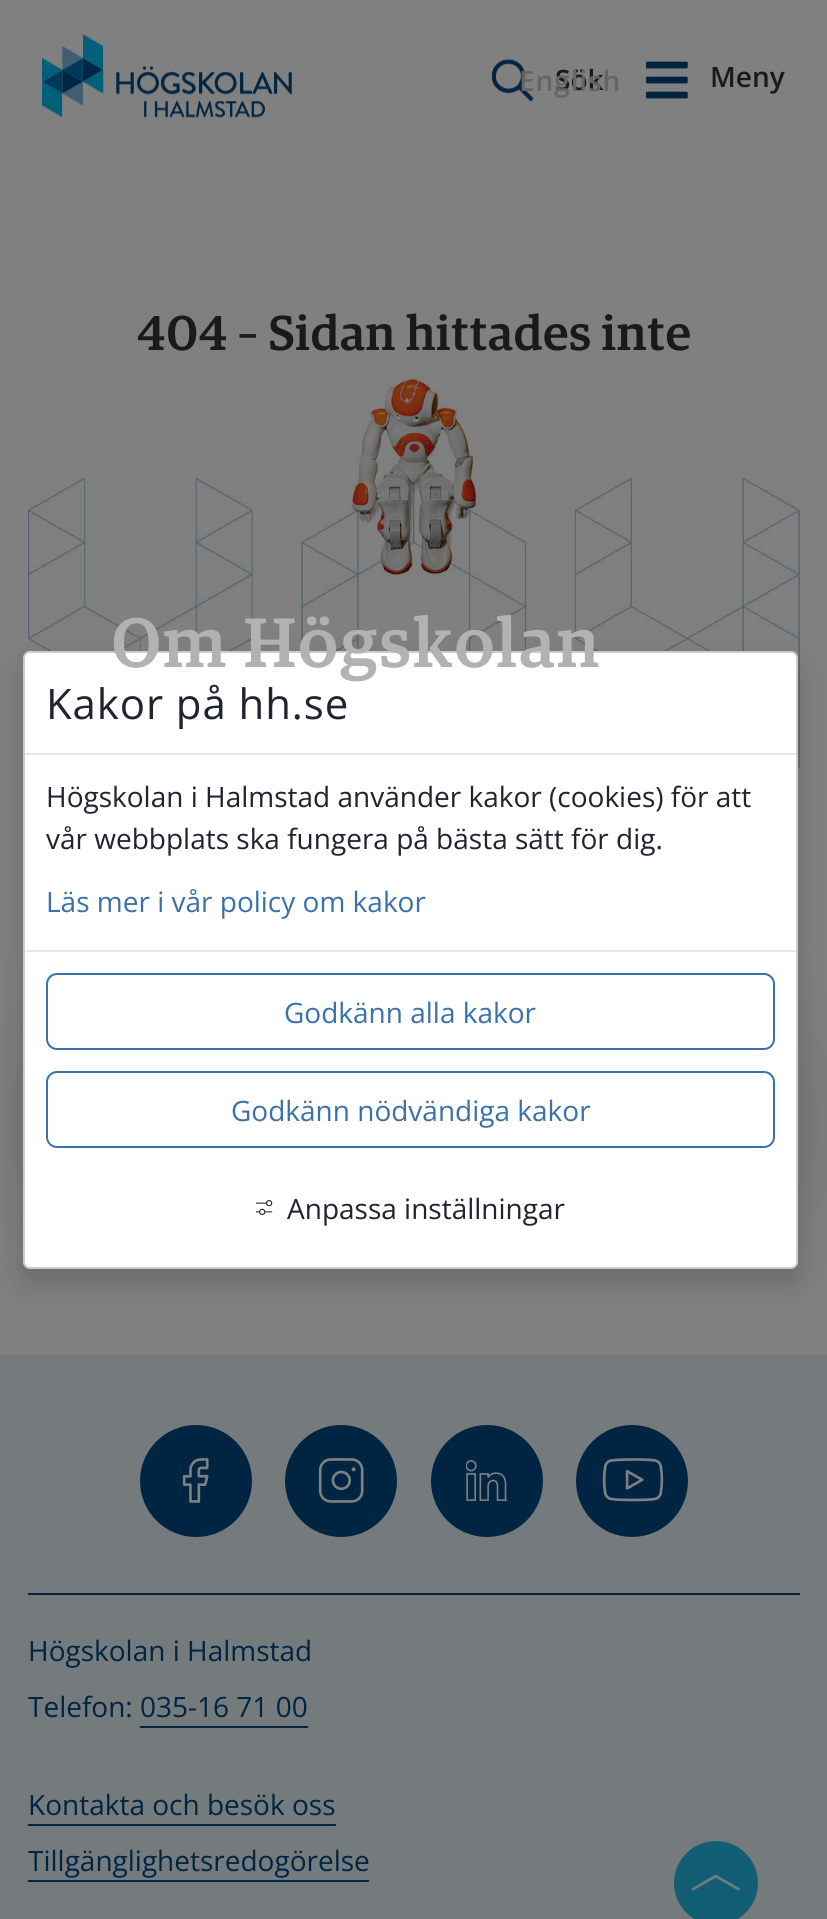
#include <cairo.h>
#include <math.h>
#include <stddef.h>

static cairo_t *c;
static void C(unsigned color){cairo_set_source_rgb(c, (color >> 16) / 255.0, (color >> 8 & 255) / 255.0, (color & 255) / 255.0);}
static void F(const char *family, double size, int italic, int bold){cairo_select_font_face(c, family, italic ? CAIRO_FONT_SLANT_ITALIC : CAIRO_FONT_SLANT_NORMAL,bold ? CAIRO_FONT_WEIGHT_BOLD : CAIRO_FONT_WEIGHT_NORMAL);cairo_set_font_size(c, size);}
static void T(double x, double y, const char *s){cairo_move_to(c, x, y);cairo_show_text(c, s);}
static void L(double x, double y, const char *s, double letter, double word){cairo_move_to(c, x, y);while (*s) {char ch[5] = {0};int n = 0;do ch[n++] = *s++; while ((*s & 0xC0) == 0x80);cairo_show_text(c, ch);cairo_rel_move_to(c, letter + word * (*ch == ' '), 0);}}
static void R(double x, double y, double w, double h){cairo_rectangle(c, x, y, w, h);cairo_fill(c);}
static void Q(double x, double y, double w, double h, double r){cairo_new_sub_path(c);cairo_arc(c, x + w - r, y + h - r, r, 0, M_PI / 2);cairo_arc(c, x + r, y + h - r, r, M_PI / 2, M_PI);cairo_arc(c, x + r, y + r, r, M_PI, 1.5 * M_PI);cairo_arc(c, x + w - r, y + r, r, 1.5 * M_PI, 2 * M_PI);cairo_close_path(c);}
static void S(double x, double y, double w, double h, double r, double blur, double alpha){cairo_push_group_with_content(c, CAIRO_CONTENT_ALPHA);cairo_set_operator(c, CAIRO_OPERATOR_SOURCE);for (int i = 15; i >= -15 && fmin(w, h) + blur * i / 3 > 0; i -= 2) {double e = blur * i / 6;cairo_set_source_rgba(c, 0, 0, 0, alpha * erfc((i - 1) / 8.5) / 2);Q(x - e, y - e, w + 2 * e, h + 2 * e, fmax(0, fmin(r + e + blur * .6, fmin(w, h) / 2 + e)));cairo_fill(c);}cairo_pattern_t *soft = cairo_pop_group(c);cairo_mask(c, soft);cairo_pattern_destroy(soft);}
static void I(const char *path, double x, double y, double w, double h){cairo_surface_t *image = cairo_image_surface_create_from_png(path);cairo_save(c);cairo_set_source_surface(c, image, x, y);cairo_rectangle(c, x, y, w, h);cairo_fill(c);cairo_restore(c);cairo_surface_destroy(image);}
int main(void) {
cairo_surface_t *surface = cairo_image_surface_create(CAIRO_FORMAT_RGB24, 827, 1919);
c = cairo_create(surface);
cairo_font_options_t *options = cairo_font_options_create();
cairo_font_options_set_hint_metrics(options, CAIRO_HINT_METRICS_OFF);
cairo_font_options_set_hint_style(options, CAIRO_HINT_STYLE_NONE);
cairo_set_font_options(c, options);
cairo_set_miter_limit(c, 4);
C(0x808080);
cairo_paint(c);
I("1.png",42,34,250,84);
I("2.png",492,59,42,43);
F("Open Sans SemiBold",28,0,0);
C(0x1a1a1a);
T(555,90,"Sök");
I("3.png",646,61,42,38);
T(710,87,"Meny");
F("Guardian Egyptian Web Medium",49,0,0);
L(137,350,"404 – Sidan hittades inte",.9,0);
I("4.png",28,376,772,428);
C(0x000000);
S(46,1062,736,123,0,70,.13);
C(0x808080);
R(798,1045,2,140);
F("Open Sans SemiBold",28,0,0);
C(0x636567);
L(519,91,"English",.9,0);
C(0x000000);
S(23,665,775,618,7,14,.15);
C(0xffffff);
Q(24,652,773,616,6);
cairo_fill_preserve(c);
C(0xcccccc);
cairo_stroke(c);
F("Guardian Egyptian Web Medium",70,0,0);
C(0xb1b2b2);
L(112,667,"Om Högskolan",2.6,0);
C(0x757a7d);
R(0,1355,827,564);
C(0x002543);
cairo_new_path(c);
cairo_arc(c,196,1481,54,0,2 * M_PI);
cairo_fill_preserve(c);
cairo_set_line_width(c,4);
cairo_stroke(c);
I("5.png",182,1458,27,45);
cairo_arc(c,341,1481,54,0,2 * M_PI);
cairo_fill_preserve(c);
cairo_stroke(c);
I("6.png",318,1458,46,45);
cairo_arc(c,487,1481,54,0,2 * M_PI);
cairo_fill_preserve(c);
cairo_stroke(c);
I("7.png",466,1460,42,41);
cairo_arc(c,632,1481,54,0,2 * M_PI);
cairo_fill_preserve(c);
cairo_stroke(c);
I("8.png",602,1458,62,44);
R(28,1593,772,2);
F("Open Sans",28,0,0);
T(28,1661,"Högskolan i Halmstad");
T(28,1717,"Telefon: 035-16 71 00");
R(140,1726,168,2);
T(28,1815,"Kontakta och besök oss");
R(28,1824,308,2);
T(28,1871,"Tillgänglighetsredogörelse");
R(28,1880,341,2);
C(0x115e75);
cairo_new_path(c);
cairo_arc(c,716,1883,42,0,2 * M_PI);
cairo_fill(c);
I("9.png",678,1846,75,73);
C(0xe6e6e6);
R(25,753,771,2);
F("Open Sans",42,0,0);
C(0x202330);
L(46,719,"Kakor på hh.se",.9,0);
F("Open Sans",28,0,0);
T(46,807,"Högskolan i Halmstad använder kakor (cookies) för att");
T(46,849,"vår webbplats ska fungera på bästa sätt för dig.");
C(0x3a71aa);
T(46,912,"Läs mer i vår policy om kakor");
C(0xe6e6e6);
R(25,950,771,2);
Q(47,974,727,75,10);
C(0x3a71aa);
cairo_set_line_width(c,2);
cairo_stroke(c);
T(284,1023,"Godkänn alla kakor");
Q(47,1072,727,75,10);
cairo_stroke(c);
T(231,1121,"Godkänn nödvändiga kakor");
I("10.png",256,1200,17,15);
C(0x202330);
T(287,1219,"Anpassa inställningar");
cairo_surface_write_to_png(surface, "o.png");
cairo_font_options_destroy(options);
cairo_destroy(c);
cairo_surface_destroy(surface);
return 0;
}
